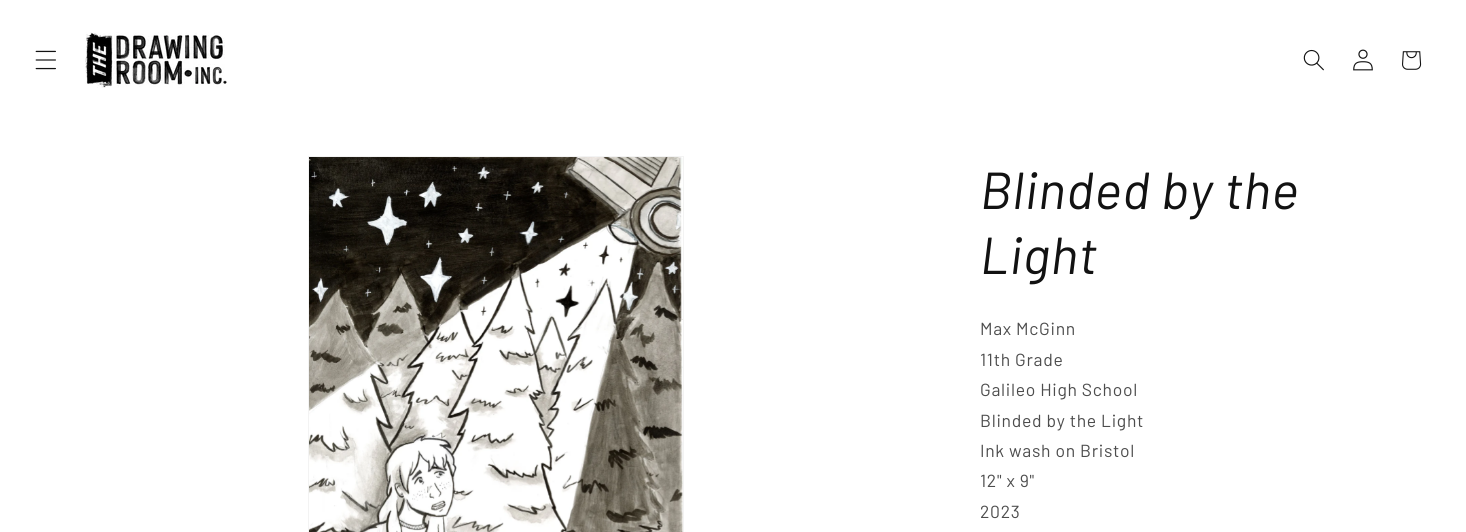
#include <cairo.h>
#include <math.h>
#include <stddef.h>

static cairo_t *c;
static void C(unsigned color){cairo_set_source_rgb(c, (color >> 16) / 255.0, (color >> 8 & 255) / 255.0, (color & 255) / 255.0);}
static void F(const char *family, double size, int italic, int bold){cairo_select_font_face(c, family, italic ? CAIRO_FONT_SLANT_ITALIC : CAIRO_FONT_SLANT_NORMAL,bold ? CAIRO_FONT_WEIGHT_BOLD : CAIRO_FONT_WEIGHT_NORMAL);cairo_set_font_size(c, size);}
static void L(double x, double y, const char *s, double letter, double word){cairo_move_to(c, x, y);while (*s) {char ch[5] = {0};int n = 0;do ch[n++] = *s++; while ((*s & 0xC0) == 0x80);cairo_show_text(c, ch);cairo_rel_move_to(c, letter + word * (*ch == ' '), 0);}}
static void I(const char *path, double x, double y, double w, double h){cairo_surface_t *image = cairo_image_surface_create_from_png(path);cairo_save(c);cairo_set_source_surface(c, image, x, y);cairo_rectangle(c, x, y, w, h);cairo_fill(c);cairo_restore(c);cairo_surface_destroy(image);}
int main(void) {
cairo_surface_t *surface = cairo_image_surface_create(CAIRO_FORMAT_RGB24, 1466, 532);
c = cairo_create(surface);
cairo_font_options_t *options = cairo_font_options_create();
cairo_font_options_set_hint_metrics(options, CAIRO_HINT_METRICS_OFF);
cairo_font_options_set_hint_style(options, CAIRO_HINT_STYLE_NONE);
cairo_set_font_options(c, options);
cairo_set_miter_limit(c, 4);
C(0xffffff);
cairo_paint(c);
I("1.png",35,50,21,20);
I("2.png",85,32,142,56);
I("3.png",1303,49,21,22);
I("4.png",1353,49,20,22);
I("5.png",1402,51,20,19);
cairo_rectangle(c,308.5,156.5,375,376);
C(0xf3f3f3);
cairo_set_line_width(c,1);
cairo_stroke(c);
I("6.png",309,157,374,375);
F("Barlow",52,1,0);
C(0x121212);
L(980,209,"Blinded by the",.75,0);
L(980,274,"Light",.75,0);
F("Barlow",17.5,0,0);
C(0x4d4d4d);
L(980,335,"Max McGinn",.7,0);
L(980,366,"11th Grade",.7,0);
L(980,396,"Galileo High School",.7,0);
L(980,427,"Blinded by the Light",.7,0);
L(980,457,"Ink wash on Bristol",.7,0);
L(980,487,"12\" x 9\"",.7,0);
L(980,518,"2023",.7,0);
cairo_surface_write_to_png(surface, "o.png");
cairo_font_options_destroy(options);
cairo_destroy(c);
cairo_surface_destroy(surface);
return 0;
}
